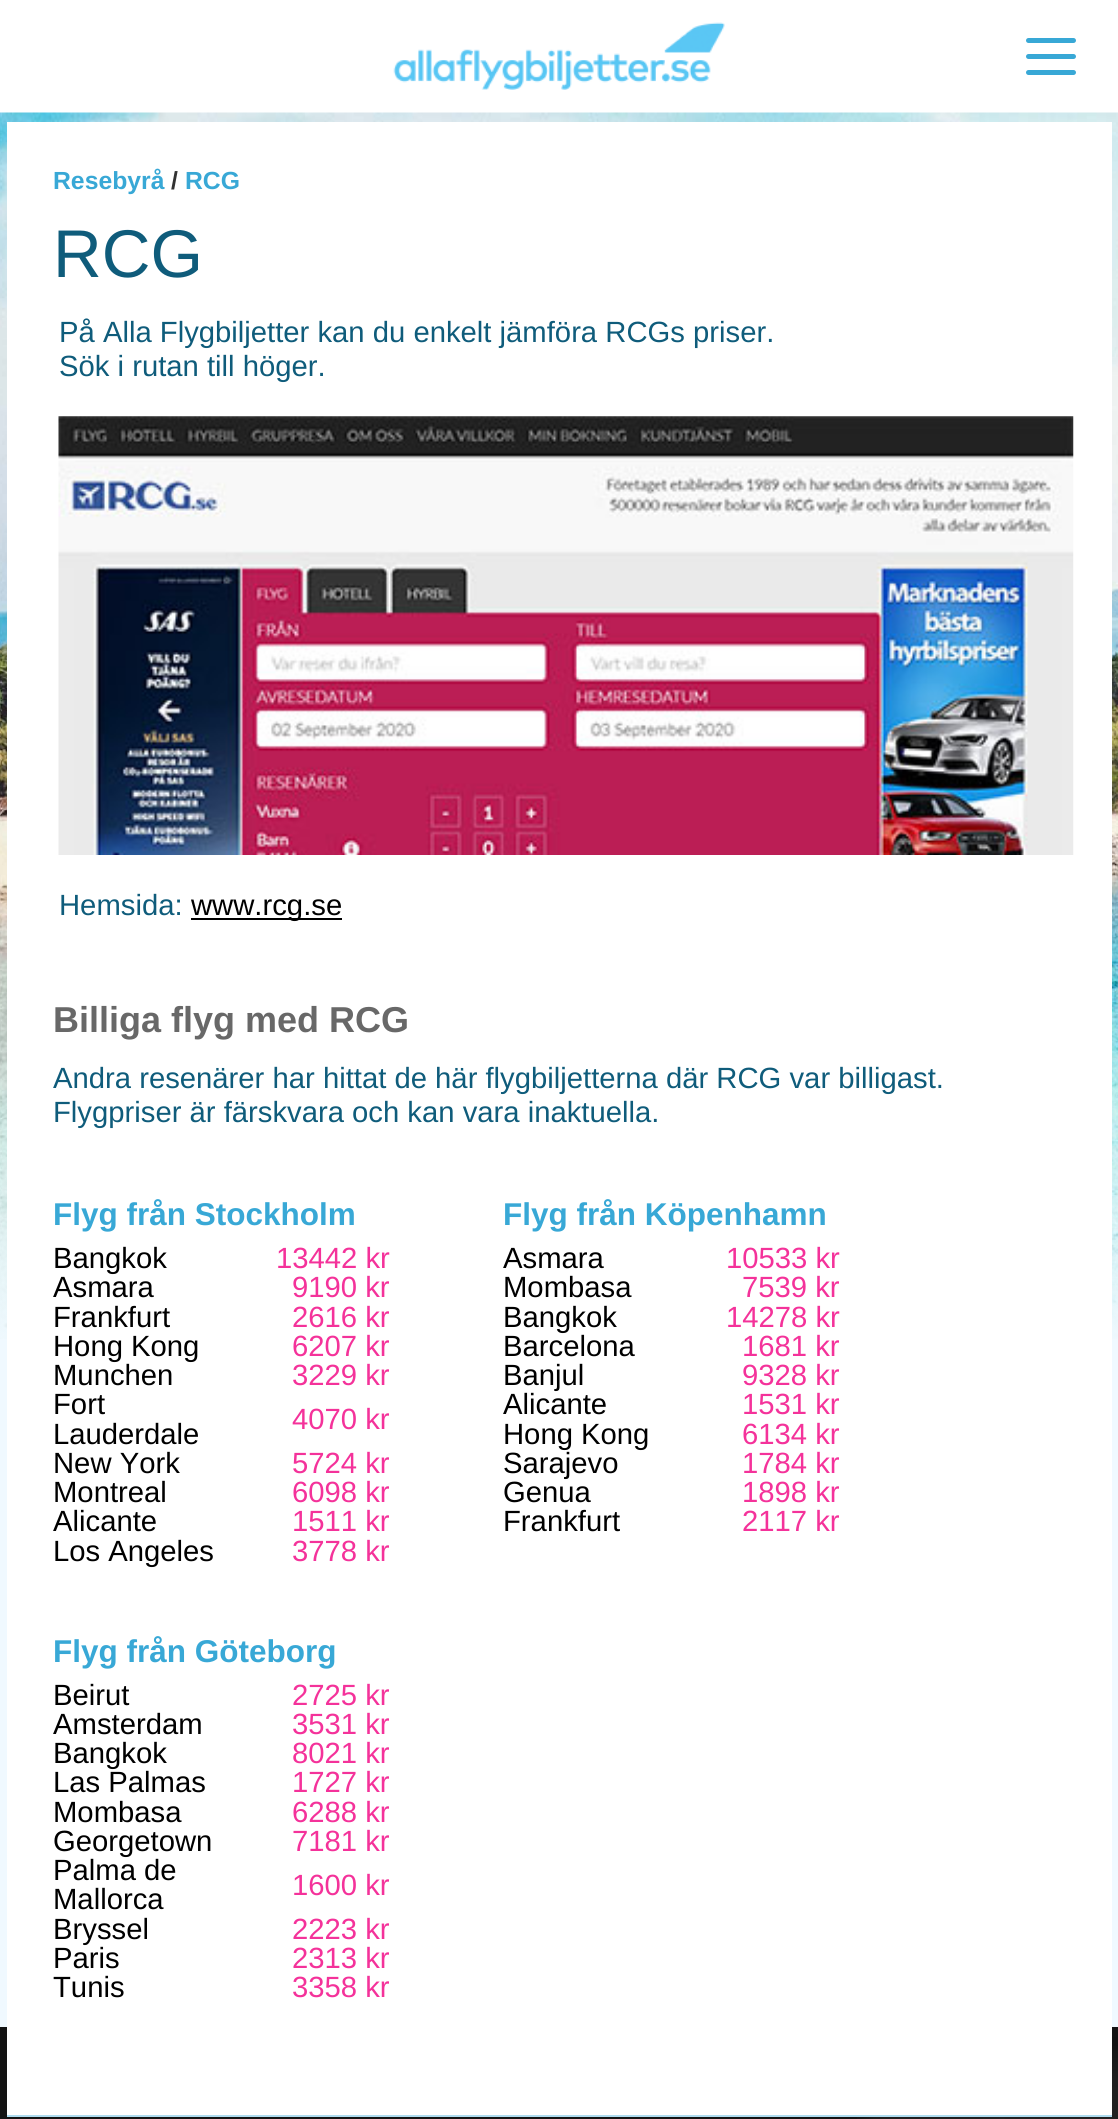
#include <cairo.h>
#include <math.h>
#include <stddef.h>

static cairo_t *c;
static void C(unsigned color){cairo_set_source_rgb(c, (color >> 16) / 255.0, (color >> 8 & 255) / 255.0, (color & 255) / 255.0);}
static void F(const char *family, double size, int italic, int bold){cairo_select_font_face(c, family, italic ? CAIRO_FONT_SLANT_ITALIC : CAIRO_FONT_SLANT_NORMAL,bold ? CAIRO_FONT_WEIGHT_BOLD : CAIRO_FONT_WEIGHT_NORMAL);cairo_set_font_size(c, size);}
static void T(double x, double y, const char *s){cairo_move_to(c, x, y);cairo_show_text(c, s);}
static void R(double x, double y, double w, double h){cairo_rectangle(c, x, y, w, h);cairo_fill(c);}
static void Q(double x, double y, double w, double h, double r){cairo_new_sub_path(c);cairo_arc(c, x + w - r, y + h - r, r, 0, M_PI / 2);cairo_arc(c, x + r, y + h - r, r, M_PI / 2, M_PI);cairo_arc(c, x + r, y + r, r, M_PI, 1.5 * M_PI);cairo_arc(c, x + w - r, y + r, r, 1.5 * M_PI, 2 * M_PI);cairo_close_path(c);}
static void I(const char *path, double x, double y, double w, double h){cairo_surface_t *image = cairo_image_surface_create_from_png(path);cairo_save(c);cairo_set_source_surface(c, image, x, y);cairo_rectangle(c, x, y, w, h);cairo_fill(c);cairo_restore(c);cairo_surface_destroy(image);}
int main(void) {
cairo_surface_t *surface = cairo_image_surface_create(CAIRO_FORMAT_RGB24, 1118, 2119);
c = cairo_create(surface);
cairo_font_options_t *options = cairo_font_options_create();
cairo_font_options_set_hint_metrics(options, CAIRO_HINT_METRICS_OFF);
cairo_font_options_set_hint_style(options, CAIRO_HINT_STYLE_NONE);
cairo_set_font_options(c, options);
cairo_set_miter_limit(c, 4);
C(0xf0f9ff);
cairo_paint(c);
C(0xffffff);
R(0,0,1118,113);
I("1.png",393,22,332,68);
C(0x38a8d6);
Q(1026,38,50,5,2.5);
cairo_fill(c);
Q(1026,54,50,5,2.5);
cairo_fill(c);
Q(1026,70,50,5,2.5);
cairo_fill(c);
I("2.png",0,112,1118,1227);
C(0x131313);
R(0,2027,1118,92);
I("4.png",857,2037,261,82);
C(0xffffff);
R(7,122,1105,1993);
C(0xafdcef);
R(7,2115,1105,2);
F("Liberation Sans",24.75,0,1);
C(0x38a8d6);
T(53,189,"Resebyrå");
C(0x323232);
T(171,189,"/");
C(0x38a8d6);
T(185,189,"RCG");
F("Liberation Sans",67.5,0,0);
C(0x0f5c7b);
T(53,277,"RCG");
F("Liberation Sans",29.25,0,0);
T(59,342,"På Alla Flygbiljetter kan du enkelt jämföra RCGs priser.");
T(59,376,"Sök i rutan till höger.");
I("3.png",58,416,1016,439);
T(59,915,"Hemsida:");
C(0x000000);
R(191,918,151,2);
T(191,915,"www.rcg.se");
F("Liberation Sans",36,0,1);
C(0x686868);
T(53,1032,"Billiga flyg med RCG");
F("Liberation Sans",29.25,0,0);
C(0x0f5c7b);
T(53,1088,"Andra resenärer har hittat de här flygbiljetterna där RCG var billigast.");
T(53,1122,"Flygpriser är färskvara och kan vara inaktuella.");
F("Liberation Sans",31.5,0,1);
C(0x38a8d6);
T(53,1225,"Flyg från Stockholm");
F("Liberation Sans",29.25,0,0);
C(0x000000);
T(53,1268,"Bangkok");
C(0xf4329a);
T(276,1268,"13442 kr");
C(0x000000);
T(53,1297,"Asmara");
C(0xf4329a);
T(292,1297,"9190 kr");
C(0x000000);
T(53,1327,"Frankfurt");
C(0xf4329a);
T(292,1327,"2616 kr");
C(0x000000);
T(53,1356,"Hong Kong");
C(0xf4329a);
T(292,1356,"6207 kr");
C(0x000000);
T(53,1385,"Munchen");
C(0xf4329a);
T(292,1385,"3229 kr");
C(0x000000);
T(53,1414,"Fort");
T(53,1444,"Lauderdale");
C(0xf4329a);
T(292,1429,"4070 kr");
C(0x000000);
T(53,1473,"New York");
C(0xf4329a);
T(292,1473,"5724 kr");
C(0x000000);
T(53,1502,"Montreal");
C(0xf4329a);
T(292,1502,"6098 kr");
C(0x000000);
T(53,1531,"Alicante");
C(0xf4329a);
T(292,1531,"1511 kr");
C(0x000000);
T(53,1561,"Los Angeles");
C(0xf4329a);
T(292,1561,"3778 kr");
F("Liberation Sans",31.5,0,1);
C(0x38a8d6);
T(503,1225,"Flyg från Köpenhamn");
F("Liberation Sans",29.25,0,0);
C(0x000000);
T(503,1268,"Asmara");
C(0xf4329a);
T(726,1268,"10533 kr");
C(0x000000);
T(503,1297,"Mombasa");
C(0xf4329a);
T(742,1297,"7539 kr");
C(0x000000);
T(503,1327,"Bangkok");
C(0xf4329a);
T(726,1327,"14278 kr");
C(0x000000);
T(503,1356,"Barcelona");
C(0xf4329a);
T(742,1356,"1681 kr");
C(0x000000);
T(503,1385,"Banjul");
C(0xf4329a);
T(742,1385,"9328 kr");
C(0x000000);
T(503,1414,"Alicante");
C(0xf4329a);
T(742,1414,"1531 kr");
C(0x000000);
T(503,1444,"Hong Kong");
C(0xf4329a);
T(742,1444,"6134 kr");
C(0x000000);
T(503,1473,"Sarajevo");
C(0xf4329a);
T(742,1473,"1784 kr");
C(0x000000);
T(503,1502,"Genua");
C(0xf4329a);
T(742,1502,"1898 kr");
C(0x000000);
T(503,1531,"Frankfurt");
C(0xf4329a);
T(742,1531,"2117 kr");
F("Liberation Sans",31.5,0,1);
C(0x38a8d6);
T(53,1662,"Flyg från Göteborg");
F("Liberation Sans",29.25,0,0);
C(0x000000);
T(53,1705,"Beirut");
C(0xf4329a);
T(292,1705,"2725 kr");
C(0x000000);
T(53,1734,"Amsterdam");
C(0xf4329a);
T(292,1734,"3531 kr");
C(0x000000);
T(53,1763,"Bangkok");
C(0xf4329a);
T(292,1763,"8021 kr");
C(0x000000);
T(53,1792,"Las Palmas");
C(0xf4329a);
T(292,1792,"1727 kr");
C(0x000000);
T(53,1822,"Mombasa");
C(0xf4329a);
T(292,1822,"6288 kr");
C(0x000000);
T(53,1851,"Georgetown");
C(0xf4329a);
T(292,1851,"7181 kr");
C(0x000000);
T(53,1880,"Palma de");
T(53,1909,"Mallorca");
C(0xf4329a);
T(292,1895,"1600 kr");
C(0x000000);
T(53,1939,"Bryssel");
C(0xf4329a);
T(292,1939,"2223 kr");
C(0x000000);
T(53,1968,"Paris");
C(0xf4329a);
T(292,1968,"2313 kr");
C(0x000000);
T(53,1997,"Tunis");
C(0xf4329a);
T(292,1997,"3358 kr");
cairo_surface_write_to_png(surface, "o.png");
cairo_font_options_destroy(options);
cairo_destroy(c);
cairo_surface_destroy(surface);
return 0;
}
